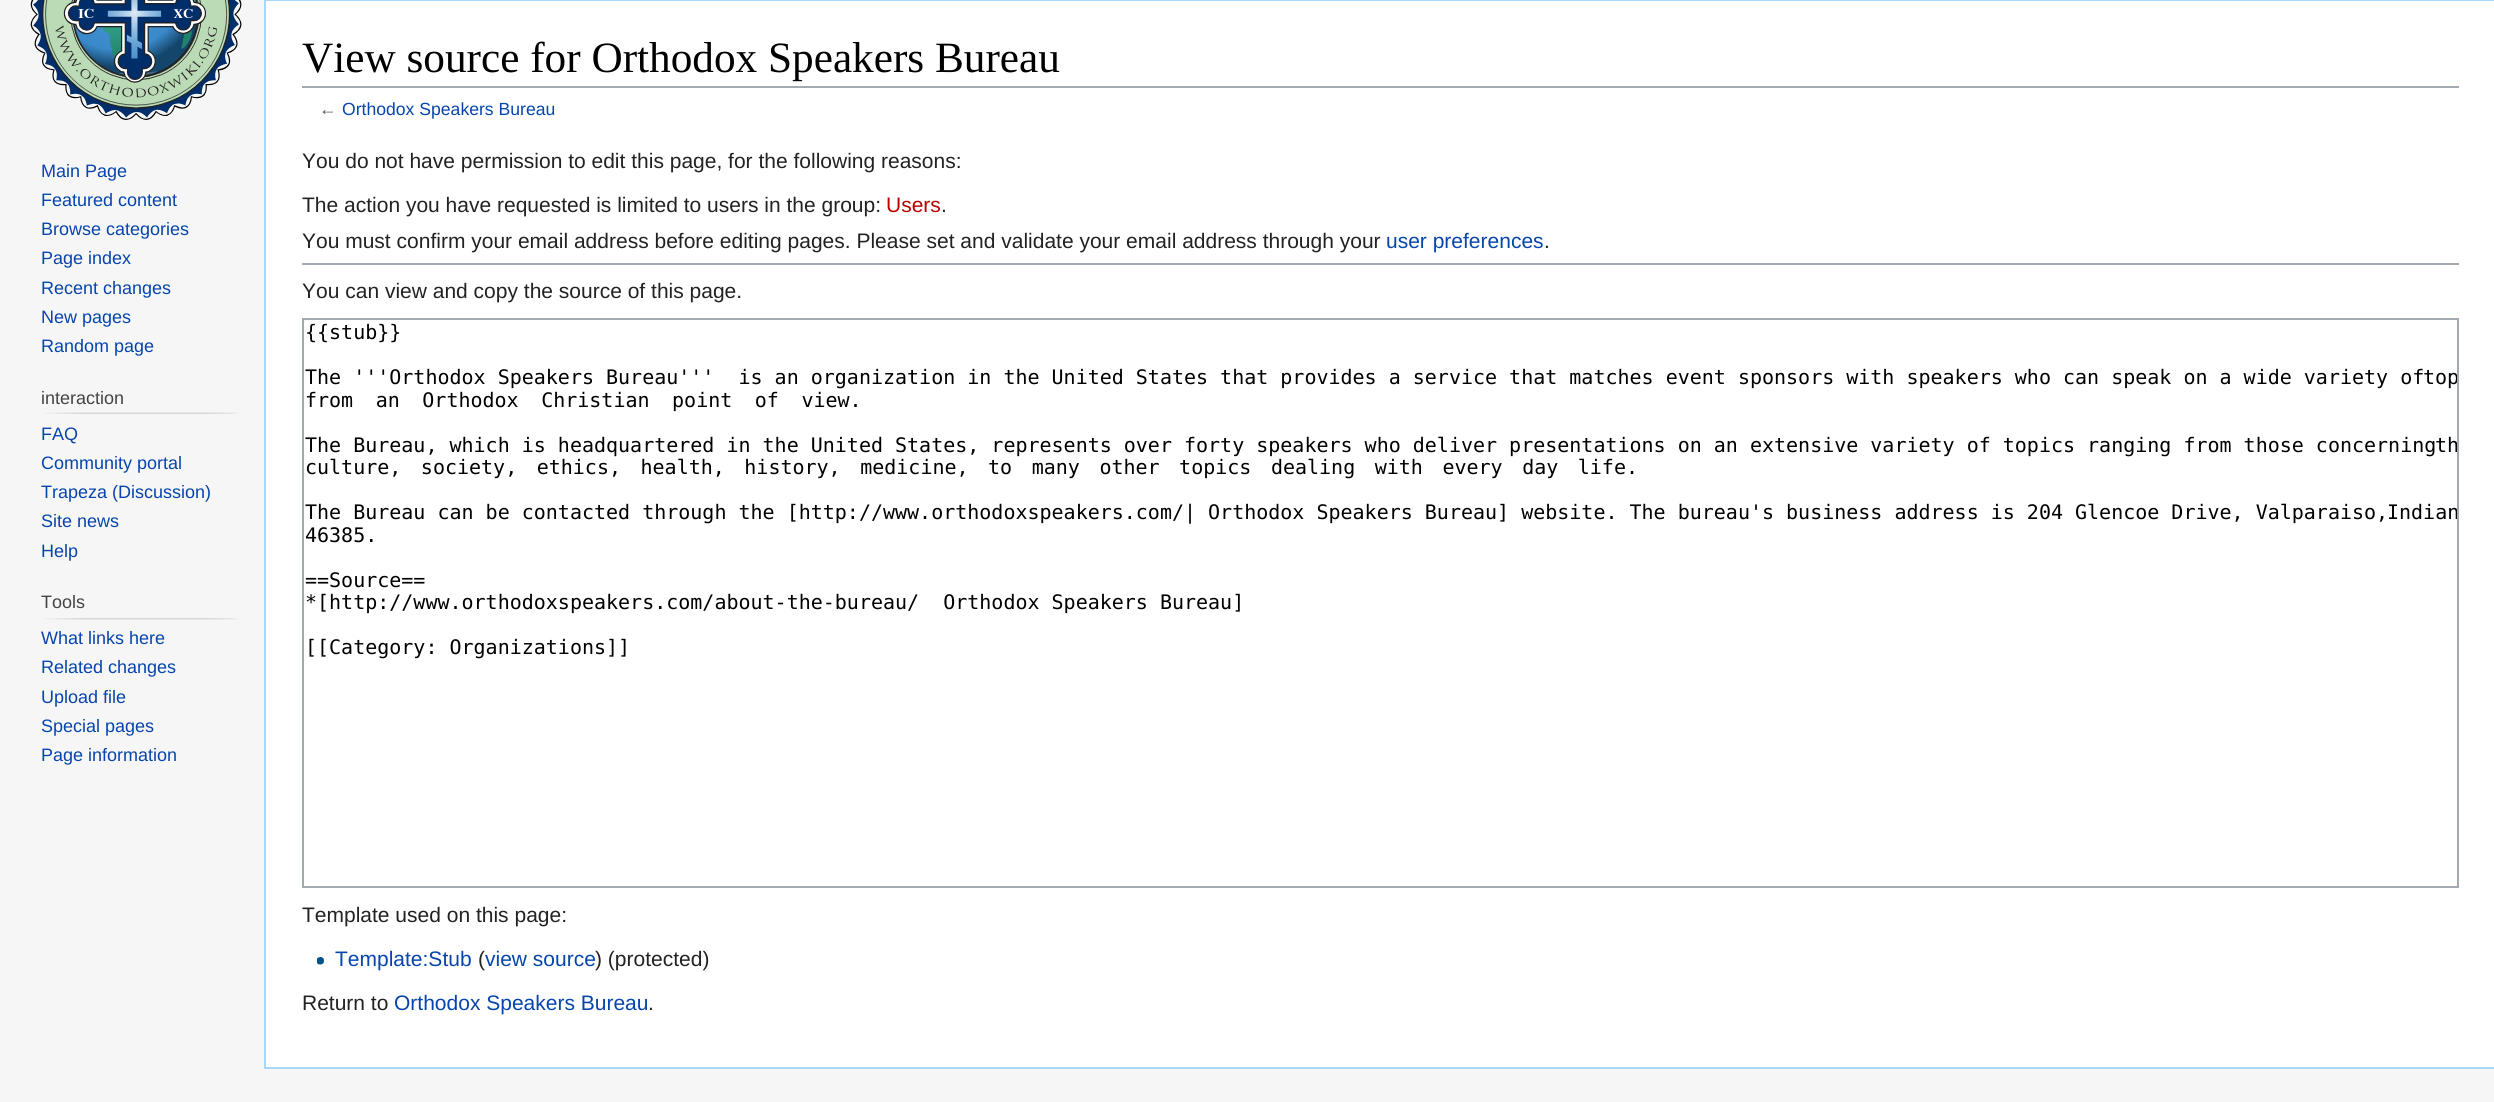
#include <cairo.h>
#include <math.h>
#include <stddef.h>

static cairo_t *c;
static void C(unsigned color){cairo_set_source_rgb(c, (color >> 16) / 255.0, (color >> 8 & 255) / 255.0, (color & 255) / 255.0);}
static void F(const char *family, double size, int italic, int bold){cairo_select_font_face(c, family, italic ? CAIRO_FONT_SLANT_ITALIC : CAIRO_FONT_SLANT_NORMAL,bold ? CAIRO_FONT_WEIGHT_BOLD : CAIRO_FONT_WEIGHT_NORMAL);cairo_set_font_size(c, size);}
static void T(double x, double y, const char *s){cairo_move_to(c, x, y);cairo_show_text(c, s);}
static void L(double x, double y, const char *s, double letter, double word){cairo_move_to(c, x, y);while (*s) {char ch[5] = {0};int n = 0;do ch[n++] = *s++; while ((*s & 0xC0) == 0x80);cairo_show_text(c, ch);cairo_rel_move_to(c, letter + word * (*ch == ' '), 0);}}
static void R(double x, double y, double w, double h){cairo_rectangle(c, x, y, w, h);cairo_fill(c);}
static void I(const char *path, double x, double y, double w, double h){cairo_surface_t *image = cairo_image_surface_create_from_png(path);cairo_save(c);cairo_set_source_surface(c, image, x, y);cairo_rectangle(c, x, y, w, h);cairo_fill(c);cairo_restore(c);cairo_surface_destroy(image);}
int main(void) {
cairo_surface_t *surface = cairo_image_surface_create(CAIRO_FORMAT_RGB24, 2494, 1102);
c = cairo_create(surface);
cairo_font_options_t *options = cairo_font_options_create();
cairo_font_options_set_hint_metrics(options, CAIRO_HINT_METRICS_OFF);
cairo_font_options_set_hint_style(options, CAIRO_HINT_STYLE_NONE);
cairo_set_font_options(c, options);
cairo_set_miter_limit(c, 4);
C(0xf6f6f6);
cairo_paint(c);
I("1.png",30,0,212,120);
F("Liberation Sans",18,0,0);
C(0x0645ad);
T(41,177,"Main Page");
T(41,206,"Featured content");
T(41,235,"Browse categories");
T(41,264,"Page index");
T(41,294,"Recent changes");
T(41,323,"New pages");
T(41,352,"Random page");
C(0x444444);
T(41,404,"interaction");
I("2.png",44,412,193,2);
C(0x0645ad);
T(41,440,"FAQ");
T(41,469,"Community portal");
T(41,498,"Trapeza (Discussion)");
T(41,527,"Site news");
T(41,557,"Help");
C(0x444444);
T(41,608,"Tools");
I("3.png",44,618,193,2);
C(0x0645ad);
T(41,644,"What links here");
T(41,673,"Related changes");
T(41,703,"Upload file");
T(41,732,"Special pages");
T(41,761,"Page information");
C(0xffffff);
R(266,1,2228,1066);
C(0xa7d7f9);
R(264,0,2230,1);
R(264,1067,2230,2);
R(264,0,2,1068);
C(0xa2a9b1);
R(302,86,2157,2);
F("Liberation Serif",43.25,0,0);
C(0x000000);
T(302,72,"View source for Orthodox Speakers Bureau");
F("Liberation Sans",17.6,0,0);
C(0x54595d);
T(319,115,"←");
C(0x0645ad);
T(342,115,"Orthodox Speakers Bureau");
F("Liberation Sans",21,0,0);
C(0x222222);
T(302,168,"You do not have permission to edit this page, for the following reasons:");
T(302,212,"The action you have requested is limited to users in the group:");
C(0xba0000);
T(886,212,"Users");
C(0x222222);
T(941,212,".");
T(302,248,"You must confirm your email address before editing pages. Please set and validate your email address through your");
C(0x0645ad);
T(1386,248,"user preferences");
C(0x222222);
T(1544,248,".");
C(0xa2a9b1);
R(302,263,2157,2);
C(0x222222);
T(302,298,"You can view and copy the source of this page.");
cairo_rectangle(c,303,319,2155,568);
C(0xa2a9b1);
cairo_stroke(c);
F("DejaVu Sans Mono",20,0,0);
C(0x000000);
T(305,339,"{{stub}}");
T(305,384,"The '''Orthodox Speakers Bureau'''  is an organization in the United States that provides a service that matches event sponsors with speakers who can speak on a wide variety of");
cairo_save(c);
cairo_rectangle(c,303,320,2154,567);
cairo_clip(c);
T(2423,384,"top");
cairo_restore(c);
L(305,407,"from an Orthodox Christian point of view.",0,10.5);
T(305,452,"The Bureau, which is headquartered in the United States, represents over forty speakers who deliver presentations on an extensive variety of topics ranging from those concerning");
cairo_save(c);
cairo_rectangle(c,303,320,2154,567);
cairo_clip(c);
T(2435,452,"th");
cairo_restore(c);
L(305,474,"culture, society, ethics, health, history, medicine, to many other topics dealing with every day life.",0,7.5);
T(305,519,"The Bureau can be contacted through the [http://www.orthodoxspeakers.com/| Orthodox Speakers Bureau] website. The bureau's business address is 204 Glencoe Drive, Valparaiso,");
cairo_save(c);
cairo_rectangle(c,303,320,2154,567);
cairo_clip(c);
T(2387,519,"Indian");
cairo_restore(c);
T(305,542,"46385.");
T(305,587,"==Source==");
T(305,609,"*[http://www.orthodoxspeakers.com/about-the-bureau/  Orthodox Speakers Bureau]");
T(305,654,"[[Category: Organizations]]");
F("Liberation Sans",21,0,0);
C(0x222222);
T(302,922,"Template used on this page:");
I("4.png",317,957,7,8);
C(0x0645ad);
T(335,966,"Template:Stub");
C(0x222222);
T(478,966,"(");
C(0x0645ad);
T(485,966,"view source");
C(0x222222);
T(595,966,") (protected)");
T(302,1010,"Return to");
C(0x0645ad);
T(394,1010,"Orthodox Speakers Bureau");
C(0x222222);
T(648,1010,".");
cairo_surface_write_to_png(surface, "o.png");
cairo_font_options_destroy(options);
cairo_destroy(c);
cairo_surface_destroy(surface);
return 0;
}
